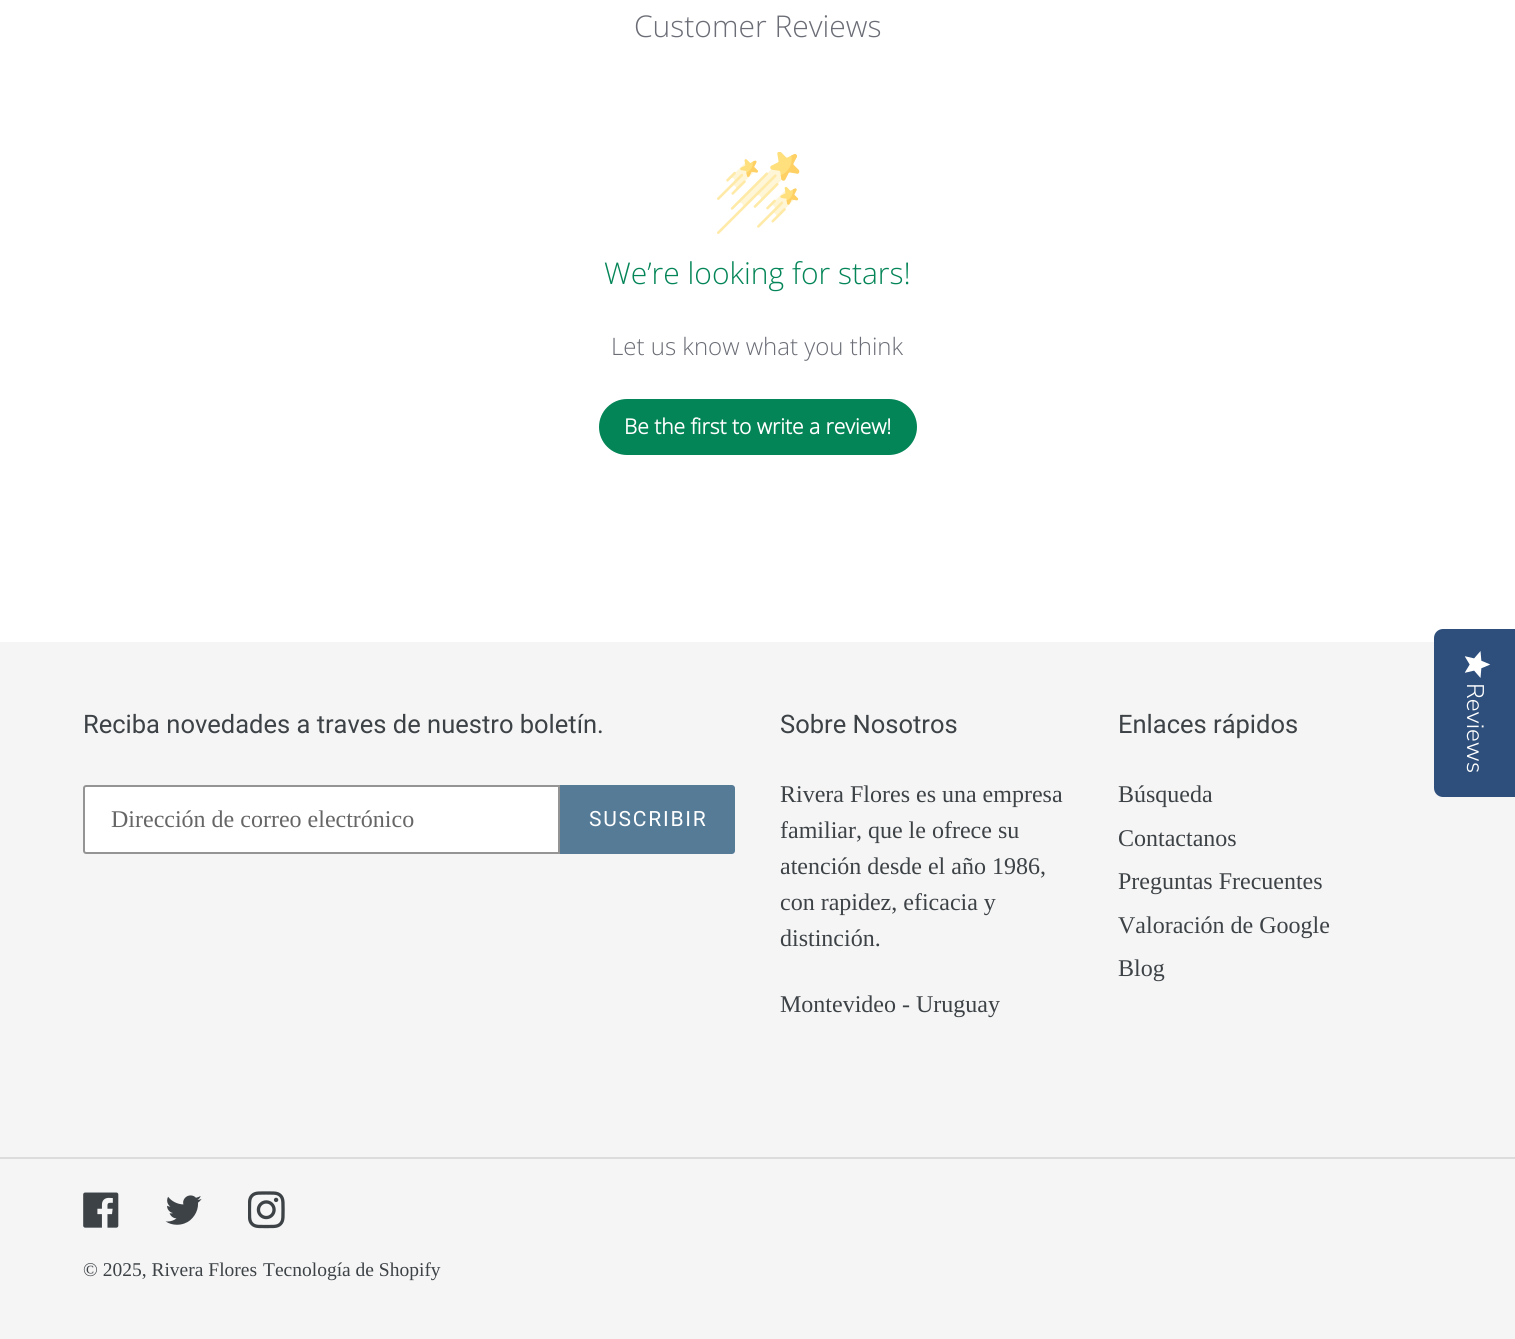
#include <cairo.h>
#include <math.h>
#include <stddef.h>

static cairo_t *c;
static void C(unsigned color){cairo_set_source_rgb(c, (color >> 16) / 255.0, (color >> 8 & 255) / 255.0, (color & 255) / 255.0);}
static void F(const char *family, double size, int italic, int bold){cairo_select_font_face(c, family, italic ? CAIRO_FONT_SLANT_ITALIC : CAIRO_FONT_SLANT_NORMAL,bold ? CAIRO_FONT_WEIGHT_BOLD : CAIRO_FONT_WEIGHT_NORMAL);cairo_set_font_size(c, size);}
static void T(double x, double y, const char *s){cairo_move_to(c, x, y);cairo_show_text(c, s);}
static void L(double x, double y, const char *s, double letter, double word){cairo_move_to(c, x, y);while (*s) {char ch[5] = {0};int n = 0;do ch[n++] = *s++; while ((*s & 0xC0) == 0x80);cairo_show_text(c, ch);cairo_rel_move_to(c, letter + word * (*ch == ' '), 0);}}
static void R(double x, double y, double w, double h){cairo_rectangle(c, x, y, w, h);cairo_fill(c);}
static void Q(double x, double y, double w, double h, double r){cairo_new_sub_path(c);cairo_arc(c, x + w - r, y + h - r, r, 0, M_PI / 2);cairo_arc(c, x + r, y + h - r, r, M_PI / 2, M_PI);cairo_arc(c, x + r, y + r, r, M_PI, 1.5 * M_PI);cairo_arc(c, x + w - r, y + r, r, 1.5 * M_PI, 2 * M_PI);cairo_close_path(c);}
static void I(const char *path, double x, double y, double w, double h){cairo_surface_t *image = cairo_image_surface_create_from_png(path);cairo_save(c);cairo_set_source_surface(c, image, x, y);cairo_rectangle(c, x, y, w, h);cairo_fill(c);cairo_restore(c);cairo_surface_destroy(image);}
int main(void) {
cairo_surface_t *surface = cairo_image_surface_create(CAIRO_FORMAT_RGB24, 1515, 1339);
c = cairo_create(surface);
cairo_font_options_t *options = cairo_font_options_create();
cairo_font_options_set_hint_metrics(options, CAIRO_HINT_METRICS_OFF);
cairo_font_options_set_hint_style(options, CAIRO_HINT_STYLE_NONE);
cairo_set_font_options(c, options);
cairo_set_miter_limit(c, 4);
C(0xffffff);
cairo_paint(c);
F("Open Sans Light",30,0,0);
C(0x6b6d76);
T(634,37,"Customer Reviews");
I("1.png",717,152,83,82);
C(0x048557);
T(604,284,"We’re looking for stars!");
F("Open Sans Light",24,0,0);
C(0x6b6d76);
T(611,355,"Let us know what you think");
C(0x048557);
Q(599,399,318,56,28);
cairo_fill(c);
F("Open Sans",21,0,1);
C(0xffffff);
T(624,434,"Be the first to write a review!");
C(0xf5f5f5);
R(0,642,1515,697);
F("Roboto",25.5,0,0);
C(0x3d4246);
T(83,733,"Reciba novedades a traves de nuestro boletín.");
C(0xffffff);
cairo_new_path(c);
cairo_move_to(c,86,786);
cairo_line_to(c,559,786);
cairo_line_to(c,559,853);
cairo_line_to(c,86,853);
cairo_curve_to(c,85,853,84,852,84,851);
cairo_line_to(c,84,788);
cairo_curve_to(c,84,787,85,786,86,786);
cairo_close_path(c);
cairo_fill_preserve(c);
C(0x949494);
cairo_stroke(c);
F("Liberation Serif",24,0,0);
C(0x666666);
T(111,827,"Dirección de correo electrónico");
C(0x557b97);
cairo_new_path(c);
cairo_move_to(c,560,785);
cairo_line_to(c,732,785);
cairo_curve_to(c,733.5,785,735,786.5,735,788);
cairo_line_to(c,735,851);
cairo_curve_to(c,735,852.5,733.5,854,732,854);
cairo_line_to(c,560,854);
cairo_close_path(c);
cairo_fill(c);
F("Roboto",21,0,0);
C(0xffffff);
L(589,826,"SUSCRIBIR",1.75,0);
F("Roboto",25.5,0,0);
C(0x3d4246);
T(780,733,"Sobre Nosotros");
F("Liberation Serif",24,0,0);
T(780,802,"Rivera Flores es una empresa");
T(780,838,"familiar, que le ofrece su");
T(780,874,"atención desde el año 1986,");
T(780,910,"con rapidez, eficacia y");
T(780,946,"distinción.");
T(780,1012,"Montevideo - Uruguay");
F("Roboto",25.5,0,0);
T(1118,733,"Enlaces rápidos");
F("Liberation Serif",24,0,0);
T(1118,802,"Búsqueda");
T(1118,846,"Contactanos");
T(1118,889,"Preguntas Frecuentes");
T(1118,933,"Valoración de Google");
T(1118,976,"Blog");
C(0xdcdcdc);
R(0,1157,1515,2);
I("2.png",83,1192,36,36);
I("3.png",165,1195,37,30);
I("4.png",248,1191,37,38);
F("Liberation Serif",19.5,0,0);
C(0x3d4246);
T(83,1276,"© 2025, Rivera Flores");
T(263,1276,"Tecnología de Shopify");
C(0x2e4f7c);
cairo_new_path(c);
cairo_move_to(c,1515,629);
cairo_line_to(c,1515,797);
cairo_line_to(c,1443,797);
cairo_curve_to(c,1438,797,1434,793,1434,788);
cairo_line_to(c,1434,638);
cairo_curve_to(c,1434,633,1438,629,1443,629);
cairo_close_path(c);
cairo_fill(c);
I("5.png",1464,651,27,27);
F("Nunito Sans Light",24,0,0);
C(0xffffff);
cairo_save(c);
cairo_translate(c,1467,683);
cairo_rotate(c,90 * M_PI / 180);
T(0,0,"Reviews");
cairo_restore(c);
cairo_surface_write_to_png(surface, "o.png");
cairo_font_options_destroy(options);
cairo_destroy(c);
cairo_surface_destroy(surface);
return 0;
}
